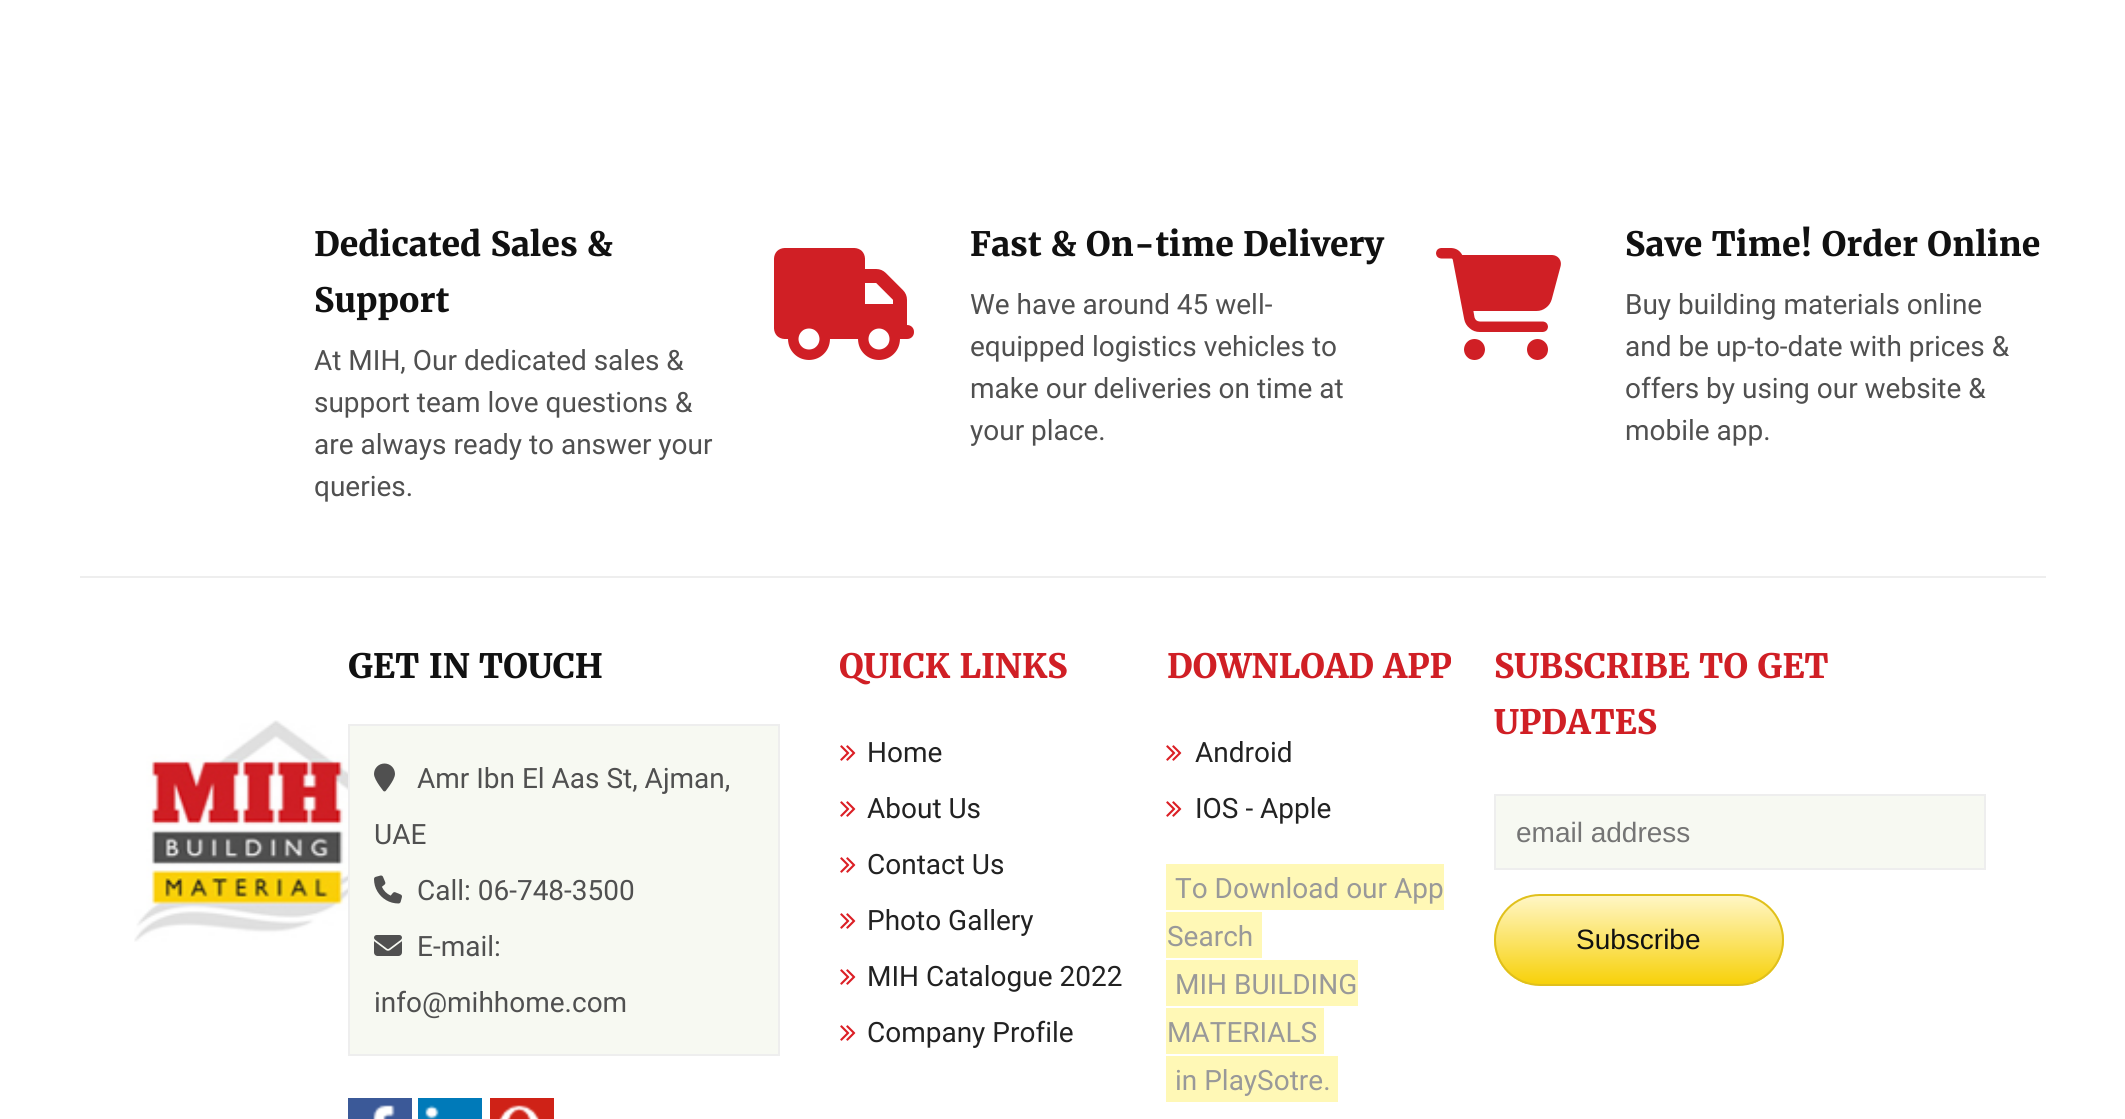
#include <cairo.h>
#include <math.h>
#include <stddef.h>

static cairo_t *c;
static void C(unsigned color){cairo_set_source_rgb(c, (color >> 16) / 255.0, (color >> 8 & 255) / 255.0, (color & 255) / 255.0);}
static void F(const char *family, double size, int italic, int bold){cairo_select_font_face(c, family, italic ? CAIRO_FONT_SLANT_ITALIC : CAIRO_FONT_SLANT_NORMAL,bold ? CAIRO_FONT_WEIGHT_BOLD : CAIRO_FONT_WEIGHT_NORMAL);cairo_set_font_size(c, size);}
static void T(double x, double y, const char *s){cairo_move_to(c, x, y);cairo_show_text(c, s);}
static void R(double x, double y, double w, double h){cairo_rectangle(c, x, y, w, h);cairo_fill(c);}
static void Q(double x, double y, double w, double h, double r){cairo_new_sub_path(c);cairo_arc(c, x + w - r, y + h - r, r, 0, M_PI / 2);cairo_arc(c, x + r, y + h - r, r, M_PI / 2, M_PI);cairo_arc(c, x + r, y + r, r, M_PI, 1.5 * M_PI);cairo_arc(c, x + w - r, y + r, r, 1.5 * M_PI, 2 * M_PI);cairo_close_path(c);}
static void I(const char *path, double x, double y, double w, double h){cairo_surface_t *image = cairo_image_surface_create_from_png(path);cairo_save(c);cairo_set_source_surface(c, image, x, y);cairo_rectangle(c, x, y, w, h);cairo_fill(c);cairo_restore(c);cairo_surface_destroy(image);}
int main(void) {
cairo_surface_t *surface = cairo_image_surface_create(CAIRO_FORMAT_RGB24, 2125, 1119);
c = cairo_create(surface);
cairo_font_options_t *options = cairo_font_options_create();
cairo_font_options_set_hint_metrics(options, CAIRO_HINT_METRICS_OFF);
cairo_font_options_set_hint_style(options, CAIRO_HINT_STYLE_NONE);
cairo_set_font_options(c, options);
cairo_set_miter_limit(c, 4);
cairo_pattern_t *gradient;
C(0xffffff);
cairo_paint(c);
F("Merriweather",33.6,0,1);
C(0x111111);
T(314,256,"Dedicated Sales &");
T(314,312,"Support");
F("Roboto",28,0,0);
C(0x505050);
T(314,370,"At MIH, Our dedicated sales &");
T(314,412,"support team love questions &");
T(314,454,"are always ready to answer your");
T(314,496,"queries.");
I("1.png",774,248,140,112);
F("Merriweather",33.6,0,1);
C(0x111111);
T(970,256,"Fast & On-time Delivery");
F("Roboto",28,0,0);
C(0x505050);
T(970,314,"We have around 45 well-");
T(970,356,"equipped logistics vehicles to");
T(970,398,"make our deliveries on time at");
T(970,440,"your place.");
I("2.png",1436,248,125,112);
F("Merriweather",33.6,0,1);
C(0x111111);
T(1625,256,"Save Time! Order Online");
F("Roboto",28,0,0);
C(0x505050);
T(1625,314,"Buy building materials online");
T(1625,356,"and be up-to-date with prices &");
T(1625,398,"offers by using our website &");
T(1625,440,"mobile app.");
C(0xeeeeee);
R(80,576,1966,2);
I("3.png",134,720,247,222);
F("Merriweather",33.6,0,1);
C(0x111111);
T(348,678,"GET IN TOUCH");
C(0xf7f9f2);
cairo_rectangle(c,349,725,430,330);
cairo_fill_preserve(c);
C(0xeeeeee);
cairo_stroke(c);
I("4.png",374,763,21,29);
F("Roboto",28,0,0);
C(0x505050);
T(417,788,"Amr Ibn El Aas St, Ajman,");
T(374,844,"UAE");
I("5.png",374,875,28,29);
T(417,900,"Call: 06-748-3500");
I("6.png",374,935,28,21);
T(417,956,"E-mail:");
T(374,1012,"info@mihhome.com");
I("7.png",348,1098,64,21);
I("8.png",418,1098,64,21);
I("9.png",490,1098,64,21);
F("Merriweather",33.6,0,1);
C(0xd01f25);
T(839,678,"QUICK LINKS");
I("10.png",840,745,16,16);
F("Roboto",28,0,0);
C(0x222222);
T(867,762,"Home");
I("10.png",840,801,16,16);
T(867,818,"About Us");
I("10.png",840,857,16,16);
T(867,874,"Contact Us");
I("10.png",840,913,16,16);
T(867,930,"Photo Gallery");
I("10.png",840,969,16,16);
T(867,986,"MIH Catalogue 2022");
I("10.png",840,1025,16,16);
T(867,1042,"Company Profile");
F("Merriweather",33.6,0,1);
C(0xd01f25);
T(1167,678,"DOWNLOAD APP");
I("10.png",1166,745,16,16);
F("Roboto",28,0,0);
C(0x222222);
T(1195,762,"Android");
I("10.png",1166,801,16,16);
T(1195,818,"IOS - Apple");
C(0xfff8b6);
R(1166,864,278,46);
C(0x999999);
T(1175,898,"To Download our App");
C(0xfff8b6);
R(1166,912,96,46);
C(0x999999);
T(1167,946,"Search");
C(0xfff8b6);
R(1166,960,192,46);
C(0x999999);
T(1175,994,"MIH BUILDING");
C(0xfff8b6);
R(1166,1008,158,46);
C(0x999999);
T(1167,1042,"MATERIALS");
C(0xfff8b6);
R(1166,1056,172,46);
C(0x999999);
T(1175,1090,"in PlaySotre.");
F("Merriweather",33.6,0,1);
C(0xd01f25);
T(1494,678,"SUBSCRIBE TO GET");
T(1494,734,"UPDATES");
C(0xf7f9f2);
cairo_rectangle(c,1495,795,490,74);
cairo_fill_preserve(c);
C(0xeeeeee);
cairo_stroke(c);
F("Liberation Sans",28,0,0);
C(0x757575);
T(1516,842,"email address");
cairo_save(c);
Q(1494,894,290,92,46);
cairo_clip(c);
gradient = cairo_pattern_create_linear(1639,896,1639,984);
cairo_pattern_add_color_stop_rgba(gradient,0,1,0.965,0.773,1);
cairo_pattern_add_color_stop_rgba(gradient,1,0.969,0.82,0.039,1);
cairo_set_source(c,gradient);
cairo_pattern_destroy(gradient);
R(1494,896,290,88);
cairo_restore(c);
Q(1495,895,288,90,45);
C(0xe0c01c);
cairo_stroke(c);
C(0x111111);
T(1576,949,"Subscribe");
cairo_surface_write_to_png(surface, "o.png");
cairo_font_options_destroy(options);
cairo_destroy(c);
cairo_surface_destroy(surface);
return 0;
}
